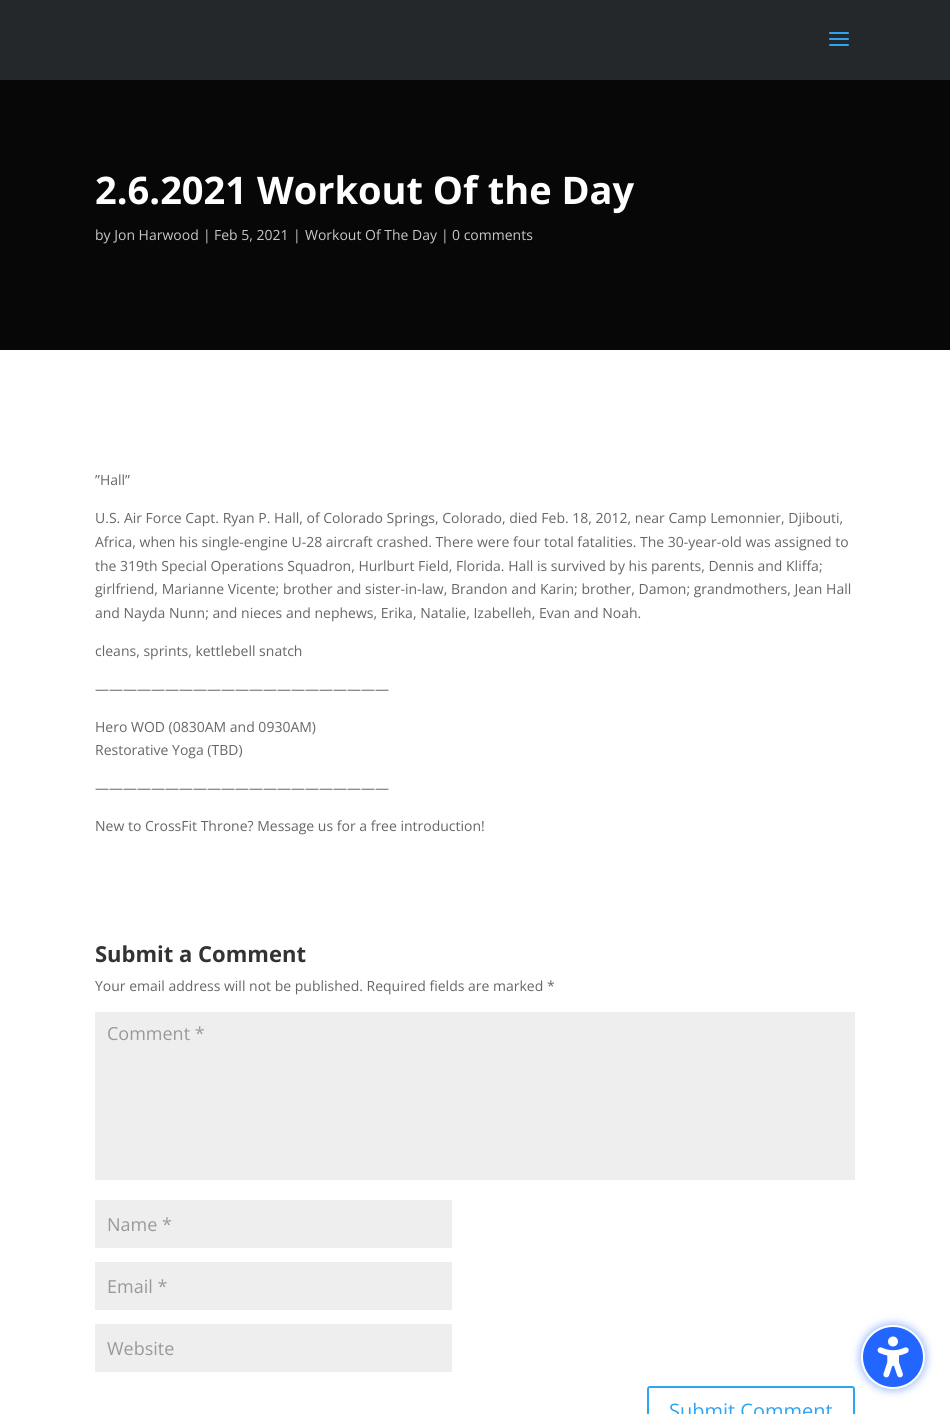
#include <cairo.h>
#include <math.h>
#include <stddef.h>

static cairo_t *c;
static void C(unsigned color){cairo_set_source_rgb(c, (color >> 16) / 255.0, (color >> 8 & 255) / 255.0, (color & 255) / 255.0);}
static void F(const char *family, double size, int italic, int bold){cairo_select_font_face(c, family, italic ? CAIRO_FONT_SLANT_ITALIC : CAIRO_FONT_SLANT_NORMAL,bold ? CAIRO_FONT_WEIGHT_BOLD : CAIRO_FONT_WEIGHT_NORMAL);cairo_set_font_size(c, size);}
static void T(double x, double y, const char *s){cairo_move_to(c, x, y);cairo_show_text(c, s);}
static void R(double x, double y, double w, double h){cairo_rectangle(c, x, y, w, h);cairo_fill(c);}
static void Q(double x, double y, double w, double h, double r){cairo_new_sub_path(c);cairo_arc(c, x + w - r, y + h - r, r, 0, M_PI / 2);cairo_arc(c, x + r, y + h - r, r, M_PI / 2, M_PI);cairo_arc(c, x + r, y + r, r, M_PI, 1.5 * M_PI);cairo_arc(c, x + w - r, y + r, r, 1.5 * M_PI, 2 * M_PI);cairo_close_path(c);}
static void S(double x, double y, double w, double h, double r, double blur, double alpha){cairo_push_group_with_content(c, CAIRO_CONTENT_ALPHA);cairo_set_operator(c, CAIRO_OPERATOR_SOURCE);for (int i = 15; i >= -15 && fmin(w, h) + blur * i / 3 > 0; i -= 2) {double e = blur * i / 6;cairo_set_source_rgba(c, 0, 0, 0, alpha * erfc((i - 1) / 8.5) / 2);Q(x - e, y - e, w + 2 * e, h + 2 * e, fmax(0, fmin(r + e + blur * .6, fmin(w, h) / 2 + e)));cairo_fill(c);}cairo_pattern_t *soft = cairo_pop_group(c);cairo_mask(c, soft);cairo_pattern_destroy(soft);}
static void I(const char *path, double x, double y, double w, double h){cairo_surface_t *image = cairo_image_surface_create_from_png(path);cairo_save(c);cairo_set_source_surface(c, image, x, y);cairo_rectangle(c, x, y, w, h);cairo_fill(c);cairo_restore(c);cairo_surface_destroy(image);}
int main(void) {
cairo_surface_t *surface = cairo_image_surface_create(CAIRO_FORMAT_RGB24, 950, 1414);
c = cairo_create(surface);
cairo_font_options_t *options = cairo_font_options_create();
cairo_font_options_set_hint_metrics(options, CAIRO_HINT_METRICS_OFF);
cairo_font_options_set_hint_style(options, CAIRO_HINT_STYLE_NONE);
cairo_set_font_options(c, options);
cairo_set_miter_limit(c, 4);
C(0xffffff);
cairo_paint(c);
C(0x25282b);
R(0,0,950,80);
I("1.png",829,32,20,14);
C(0x070707);
R(0,80,950,270);
F("Open Sans",38,0,1);
C(0xffffff);
T(95,204,"2.6.2021 Workout Of the Day");
F("Open Sans",14,0,0);
C(0xc8c8c8);
T(95,240,"by Jon Harwood");
T(203,240,"|");
T(214,240,"Feb 5, 2021");
T(293,240,"|");
T(305,240,"Workout Of The Day");
T(441,240,"|");
T(452,240,"0 comments");
C(0x666666);
T(95,485,"”Hall”");
T(95,523,"U.S. Air Force Capt. Ryan P. Hall, of Colorado Springs, Colorado, died Feb. 18, 2012, near Camp Lemonnier, Djibouti,");
T(95,547,"Africa, when his single-engine U-28 aircraft crashed. There were four total fatalities. The 30-year-old was assigned to");
T(95,571,"the 319th Special Operations Squadron, Hurlburt Field, Florida. Hall is survived by his parents, Dennis and Kliffa;");
T(95,594,"girlfriend, Marianne Vicente; brother and sister-in-law, Brandon and Karin; brother, Damon; grandmothers, Jean Hall");
T(95,618,"and Nayda Nunn; and nieces and nephews, Erika, Natalie, Izabelleh, Evan and Noah.");
T(95,656,"cleans, sprints, kettlebell snatch");
T(95,694,"—————————————————————");
T(95,732,"Hero WOD (0830AM and 0930AM)");
T(95,755,"Restorative Yoga (TBD)");
T(95,793,"—————————————————————");
T(95,831,"New to CrossFit Throne? Message us for a free introduction!");
F("Open Sans",22,0,1);
C(0x333333);
T(95,962,"Submit a Comment");
F("Open Sans",14,0,0);
C(0x666666);
T(95,991,"Your email address will not be published. Required fields are marked *");
C(0xeeeeee);
R(95,1012,760,168);
F("Open Sans",18,0,0);
C(0x999999);
T(107,1040,"Comment *");
C(0xeeeeee);
R(95,1200,357,48);
C(0x999999);
T(107,1231,"Name *");
C(0xeeeeee);
R(95,1262,357,48);
C(0x999999);
T(107,1293,"Email *");
C(0xeeeeee);
R(95,1324,357,48);
C(0x999999);
T(107,1355,"Website");
Q(648,1387,206,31,2);
C(0x2ea3f2);
cairo_stroke(c);
F("Open Sans",20,0,0);
T(669,1418,"Submit Comment");
C(0x2266ff);
S(859,1323,68,68,34,4,.4);
C(0x2266ff);
cairo_arc(c,893,1357,31,0,2 * M_PI);
cairo_fill_preserve(c);
C(0xffffff);
cairo_stroke(c);
I("2.png",877,1336,32,42);
cairo_surface_write_to_png(surface, "o.png");
cairo_font_options_destroy(options);
cairo_destroy(c);
cairo_surface_destroy(surface);
return 0;
}
